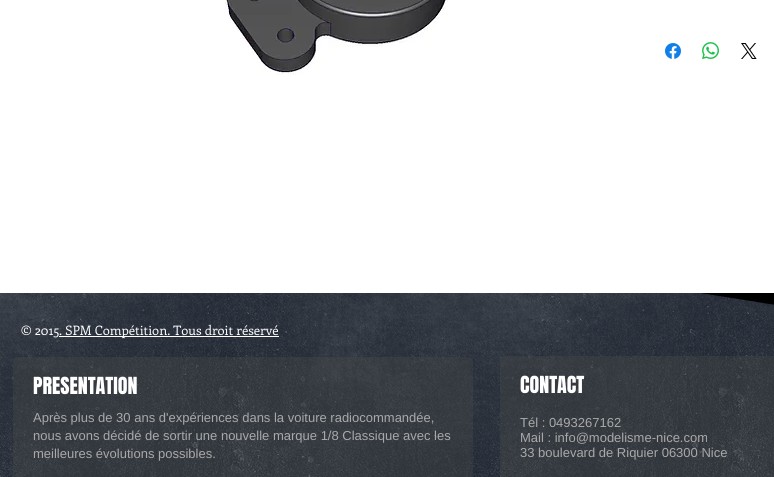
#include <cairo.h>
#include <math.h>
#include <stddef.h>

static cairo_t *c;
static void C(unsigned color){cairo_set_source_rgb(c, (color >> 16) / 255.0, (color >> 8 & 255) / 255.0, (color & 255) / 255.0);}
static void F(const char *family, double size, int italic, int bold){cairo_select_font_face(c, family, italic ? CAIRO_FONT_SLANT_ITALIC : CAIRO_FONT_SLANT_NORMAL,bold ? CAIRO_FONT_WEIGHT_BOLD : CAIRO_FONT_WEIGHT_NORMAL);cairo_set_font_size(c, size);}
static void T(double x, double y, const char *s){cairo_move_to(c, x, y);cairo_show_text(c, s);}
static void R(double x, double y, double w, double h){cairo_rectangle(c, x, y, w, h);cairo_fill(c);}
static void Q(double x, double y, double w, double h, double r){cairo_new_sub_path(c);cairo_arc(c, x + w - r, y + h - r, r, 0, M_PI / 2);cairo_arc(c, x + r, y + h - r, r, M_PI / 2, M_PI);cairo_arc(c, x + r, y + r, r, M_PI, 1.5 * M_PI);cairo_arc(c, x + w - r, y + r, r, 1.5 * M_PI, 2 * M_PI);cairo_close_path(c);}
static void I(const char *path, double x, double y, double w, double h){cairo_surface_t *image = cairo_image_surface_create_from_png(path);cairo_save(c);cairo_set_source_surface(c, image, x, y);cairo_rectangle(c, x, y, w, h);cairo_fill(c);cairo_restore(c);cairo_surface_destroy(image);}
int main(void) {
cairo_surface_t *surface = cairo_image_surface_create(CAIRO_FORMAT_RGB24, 774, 477);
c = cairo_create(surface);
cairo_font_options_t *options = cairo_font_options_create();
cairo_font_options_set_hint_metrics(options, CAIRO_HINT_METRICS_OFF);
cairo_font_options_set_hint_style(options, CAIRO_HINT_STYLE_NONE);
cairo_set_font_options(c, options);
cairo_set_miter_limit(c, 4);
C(0x212833);
cairo_paint(c);
I("1.png",0,293,774,184);
C(0xffffff);
R(0,0,774,293);
I("2.png",225,0,223,75);
I("3.png",665,43,16,16);
I("4.png",702,42,17,17);
I("5.png",741,43,16,16);
I("6.png",701,293,73,12);
F("Enriqueta",13,0,0);
T(21,335,"© 2015");
R(59,336,220,1);
T(59,335,". SPM Compétition. Tous droit réservé");
cairo_set_source_rgba(c,0.298,0.298,0.298,0.35);
Q(13,357,460,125,5);
cairo_fill(c);
F("Anton",20,0,0);
C(0xffffff);
T(33,394,"PRESENTATION");
F("Liberation Sans",13,0,0);
C(0xa9a9a9);
T(33,422,"Après plus de 30 ans d'expériences dans la voiture radiocommandée,");
T(33,440,"nous avons décidé de sortir une nouvelle marque 1/8 Classique avec les");
T(33,458,"meilleures évolutions possibles.");
cairo_set_source_rgba(c,0.298,0.298,0.298,0.35);
Q(500,356,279,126,5);
cairo_fill(c);
F("Anton",20,0,0);
C(0xffffff);
T(520,393,"CONTACT");
F("Liberation Sans",13,0,0);
C(0xa9a9a9);
T(520,427,"Tél : 0493267162");
T(520,442,"Mail : info@modelisme-nice.com");
T(520,457,"33 boulevard de Riquier 06300 Nice");
cairo_surface_write_to_png(surface, "o.png");
cairo_font_options_destroy(options);
cairo_destroy(c);
cairo_surface_destroy(surface);
return 0;
}
